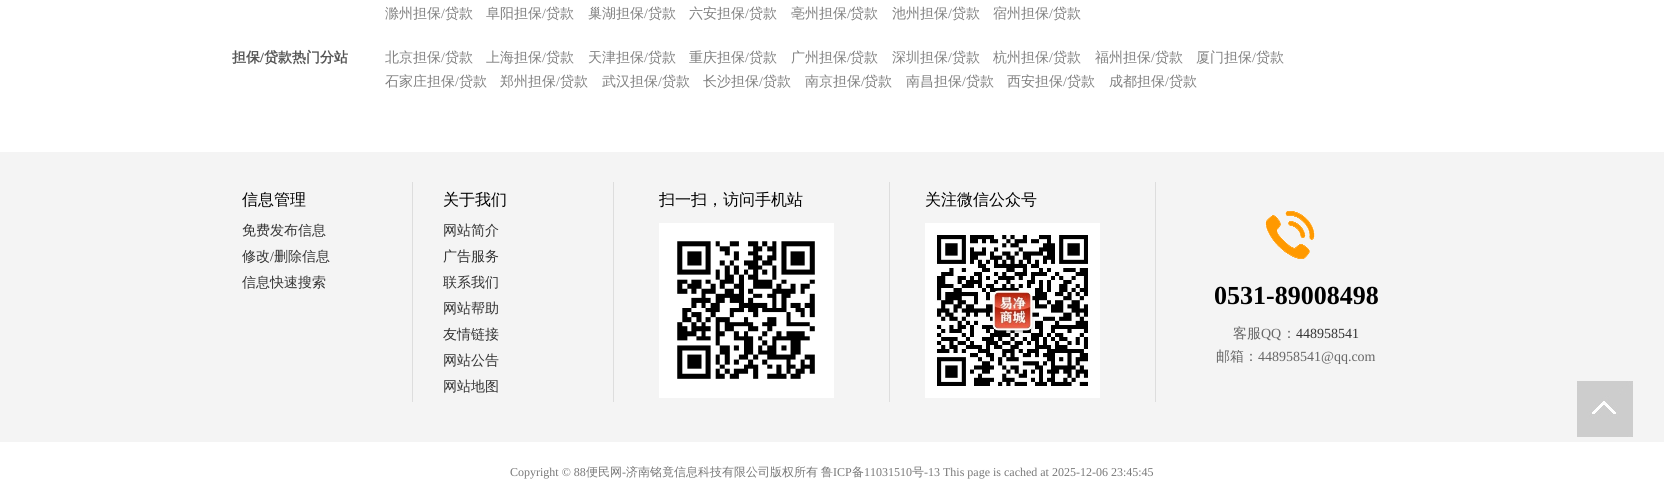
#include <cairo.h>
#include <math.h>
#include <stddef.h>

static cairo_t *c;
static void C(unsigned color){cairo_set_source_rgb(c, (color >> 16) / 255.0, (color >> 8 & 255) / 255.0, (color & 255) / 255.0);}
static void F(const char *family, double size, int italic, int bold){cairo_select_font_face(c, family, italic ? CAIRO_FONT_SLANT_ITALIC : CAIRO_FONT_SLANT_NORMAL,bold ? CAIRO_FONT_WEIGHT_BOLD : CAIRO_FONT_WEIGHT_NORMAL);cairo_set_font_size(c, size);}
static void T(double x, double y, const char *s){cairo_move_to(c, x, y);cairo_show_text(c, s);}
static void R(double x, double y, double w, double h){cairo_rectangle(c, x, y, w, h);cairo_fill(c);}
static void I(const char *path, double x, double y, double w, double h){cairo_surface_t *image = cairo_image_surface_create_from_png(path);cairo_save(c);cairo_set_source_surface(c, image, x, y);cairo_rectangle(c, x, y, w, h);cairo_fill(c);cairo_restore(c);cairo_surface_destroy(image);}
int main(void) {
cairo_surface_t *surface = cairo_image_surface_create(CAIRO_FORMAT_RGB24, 1664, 502);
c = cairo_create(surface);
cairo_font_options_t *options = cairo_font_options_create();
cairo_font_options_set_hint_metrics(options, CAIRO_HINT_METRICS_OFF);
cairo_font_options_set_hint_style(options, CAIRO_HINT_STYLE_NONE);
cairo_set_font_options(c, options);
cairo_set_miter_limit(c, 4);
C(0xffffff);
cairo_paint(c);
F("WenQuanYi Zen Hei Medium",14,0,0);
C(0x808080);
T(385,18,"滁州担保");
F("Liberation Serif",14,0,0);
T(441,18,"/");
F("WenQuanYi Zen Hei Medium",14,0,0);
T(445,18,"贷款");
T(486,18,"阜阳担保");
F("Liberation Serif",14,0,0);
T(542,18,"/");
F("WenQuanYi Zen Hei Medium",14,0,0);
T(546,18,"贷款");
T(588,18,"巢湖担保");
F("Liberation Serif",14,0,0);
T(644,18,"/");
F("WenQuanYi Zen Hei Medium",14,0,0);
T(648,18,"贷款");
T(689,18,"六安担保");
F("Liberation Serif",14,0,0);
T(745,18,"/");
F("WenQuanYi Zen Hei Medium",14,0,0);
T(749,18,"贷款");
T(791,18,"亳州担保");
F("Liberation Serif",14,0,0);
T(847,18,"/");
F("WenQuanYi Zen Hei Medium",14,0,0);
T(850,18,"贷款");
T(892,18,"池州担保");
F("Liberation Serif",14,0,0);
T(948,18,"/");
F("WenQuanYi Zen Hei Medium",14,0,0);
T(952,18,"贷款");
T(993,18,"宿州担保");
F("Liberation Serif",14,0,0);
T(1049,18,"/");
F("WenQuanYi Zen Hei Medium",14,0,0);
T(1053,18,"贷款");
F("WenQuanYi Zen Hei",14,0,1);
C(0x555555);
T(232,62,"担保");
F("Liberation Serif",14,0,1);
T(260,62,"/");
F("WenQuanYi Zen Hei",14,0,1);
T(264,62,"贷款热门分站");
F("WenQuanYi Zen Hei Medium",14,0,0);
C(0x808080);
T(385,62,"北京担保");
F("Liberation Serif",14,0,0);
T(441,62,"/");
F("WenQuanYi Zen Hei Medium",14,0,0);
T(445,62,"贷款");
T(486,62,"上海担保");
F("Liberation Serif",14,0,0);
T(542,62,"/");
F("WenQuanYi Zen Hei Medium",14,0,0);
T(546,62,"贷款");
T(588,62,"天津担保");
F("Liberation Serif",14,0,0);
T(644,62,"/");
F("WenQuanYi Zen Hei Medium",14,0,0);
T(648,62,"贷款");
T(689,62,"重庆担保");
F("Liberation Serif",14,0,0);
T(745,62,"/");
F("WenQuanYi Zen Hei Medium",14,0,0);
T(749,62,"贷款");
T(791,62,"广州担保");
F("Liberation Serif",14,0,0);
T(847,62,"/");
F("WenQuanYi Zen Hei Medium",14,0,0);
T(850,62,"贷款");
T(892,62,"深圳担保");
F("Liberation Serif",14,0,0);
T(948,62,"/");
F("WenQuanYi Zen Hei Medium",14,0,0);
T(952,62,"贷款");
T(993,62,"杭州担保");
F("Liberation Serif",14,0,0);
T(1049,62,"/");
F("WenQuanYi Zen Hei Medium",14,0,0);
T(1053,62,"贷款");
T(1095,62,"福州担保");
F("Liberation Serif",14,0,0);
T(1151,62,"/");
F("WenQuanYi Zen Hei Medium",14,0,0);
T(1155,62,"贷款");
T(1196,62,"厦门担保");
F("Liberation Serif",14,0,0);
T(1252,62,"/");
F("WenQuanYi Zen Hei Medium",14,0,0);
T(1256,62,"贷款");
T(385,86,"石家庄担保");
F("Liberation Serif",14,0,0);
T(455,86,"/");
F("WenQuanYi Zen Hei Medium",14,0,0);
T(459,86,"贷款");
T(500,86,"郑州担保");
F("Liberation Serif",14,0,0);
T(556,86,"/");
F("WenQuanYi Zen Hei Medium",14,0,0);
T(560,86,"贷款");
T(602,86,"武汉担保");
F("Liberation Serif",14,0,0);
T(658,86,"/");
F("WenQuanYi Zen Hei Medium",14,0,0);
T(662,86,"贷款");
T(703,86,"长沙担保");
F("Liberation Serif",14,0,0);
T(759,86,"/");
F("WenQuanYi Zen Hei Medium",14,0,0);
T(763,86,"贷款");
T(805,86,"南京担保");
F("Liberation Serif",14,0,0);
T(861,86,"/");
F("WenQuanYi Zen Hei Medium",14,0,0);
T(864,86,"贷款");
T(906,86,"南昌担保");
F("Liberation Serif",14,0,0);
T(962,86,"/");
F("WenQuanYi Zen Hei Medium",14,0,0);
T(966,86,"贷款");
T(1007,86,"西安担保");
F("Liberation Serif",14,0,0);
T(1063,86,"/");
F("WenQuanYi Zen Hei Medium",14,0,0);
T(1067,86,"贷款");
T(1109,86,"成都担保");
F("Liberation Serif",14,0,0);
T(1165,86,"/");
F("WenQuanYi Zen Hei Medium",14,0,0);
T(1169,86,"贷款");
C(0xf4f4f4);
R(0,152,1664,290);
C(0xdddddd);
R(412,182,1,220);
F("WenQuanYi Zen Hei Medium",16,0,0);
C(0x000000);
T(242,205,"信息管理");
F("WenQuanYi Zen Hei Medium",14,0,0);
C(0x333333);
T(242,235,"免费发布信息");
T(242,261,"修改");
F("Liberation Serif",14,0,0);
T(270,261,"/");
F("WenQuanYi Zen Hei Medium",14,0,0);
T(274,261,"删除信息");
T(242,287,"信息快速搜索");
C(0xdddddd);
R(613,182,1,220);
F("WenQuanYi Zen Hei Medium",16,0,0);
C(0x000000);
T(443,205,"关于我们");
F("WenQuanYi Zen Hei Medium",14,0,0);
C(0x333333);
T(443,235,"网站简介");
T(443,261,"广告服务");
T(443,287,"联系我们");
T(443,313,"网站帮助");
T(443,339,"友情链接");
T(443,365,"网站公告");
T(443,391,"网站地图");
C(0xdddddd);
R(889,182,1,220);
F("WenQuanYi Zen Hei Medium",16,0,0);
C(0x000000);
T(659,205,"扫一扫，访问手机站");
I("1.png",659,223,175,175);
C(0xdddddd);
R(1155,182,1,220);
C(0x000000);
T(925,205,"关注微信公众号");
I("2.png",925,223,175,175);
I("3.png",1265,211,50,48);
F("Liberation Serif",26,0,1);
T(1214,304,"0531-89008498");
F("WenQuanYi Zen Hei Medium",14,0,0);
C(0x666666);
T(1233,338,"客服");
F("Liberation Serif",14,0,0);
T(1261,338,"QQ");
F("WenQuanYi Zen Hei Medium",14,0,0);
T(1282,338,"：");
F("Liberation Serif",14,0,0);
C(0x333333);
T(1296,338,"448958541");
F("WenQuanYi Zen Hei Medium",14,0,0);
C(0x666666);
T(1216,361,"邮箱：");
F("Liberation Serif",14,0,0);
T(1258,361,"448958541@qq.com");
F("Liberation Serif",12,0,0);
C(0x787878);
T(510,476,"Copyright © 88");
F("WenQuanYi Zen Hei Medium",12,0,0);
T(586,476,"便民网");
F("Liberation Serif",12,0,0);
T(622,476,"-");
F("WenQuanYi Zen Hei Medium",12,0,0);
T(626,476,"济南铭竟信息科技有限公司版权所有");
T(821,476,"鲁");
F("Liberation Serif",12,0,0);
T(833,476,"ICP");
F("WenQuanYi Zen Hei Medium",12,0,0);
T(852,476,"备");
F("Liberation Serif",12,0,0);
T(864,476,"11031510");
F("WenQuanYi Zen Hei Medium",12,0,0);
T(912,476,"号");
F("Liberation Serif",12,0,0);
T(924,476,"-13 This page is cached at 2025-12-06 23:45:45");
I("4.png",1577,381,56,56);
cairo_surface_write_to_png(surface, "o.png");
cairo_font_options_destroy(options);
cairo_destroy(c);
cairo_surface_destroy(surface);
return 0;
}
